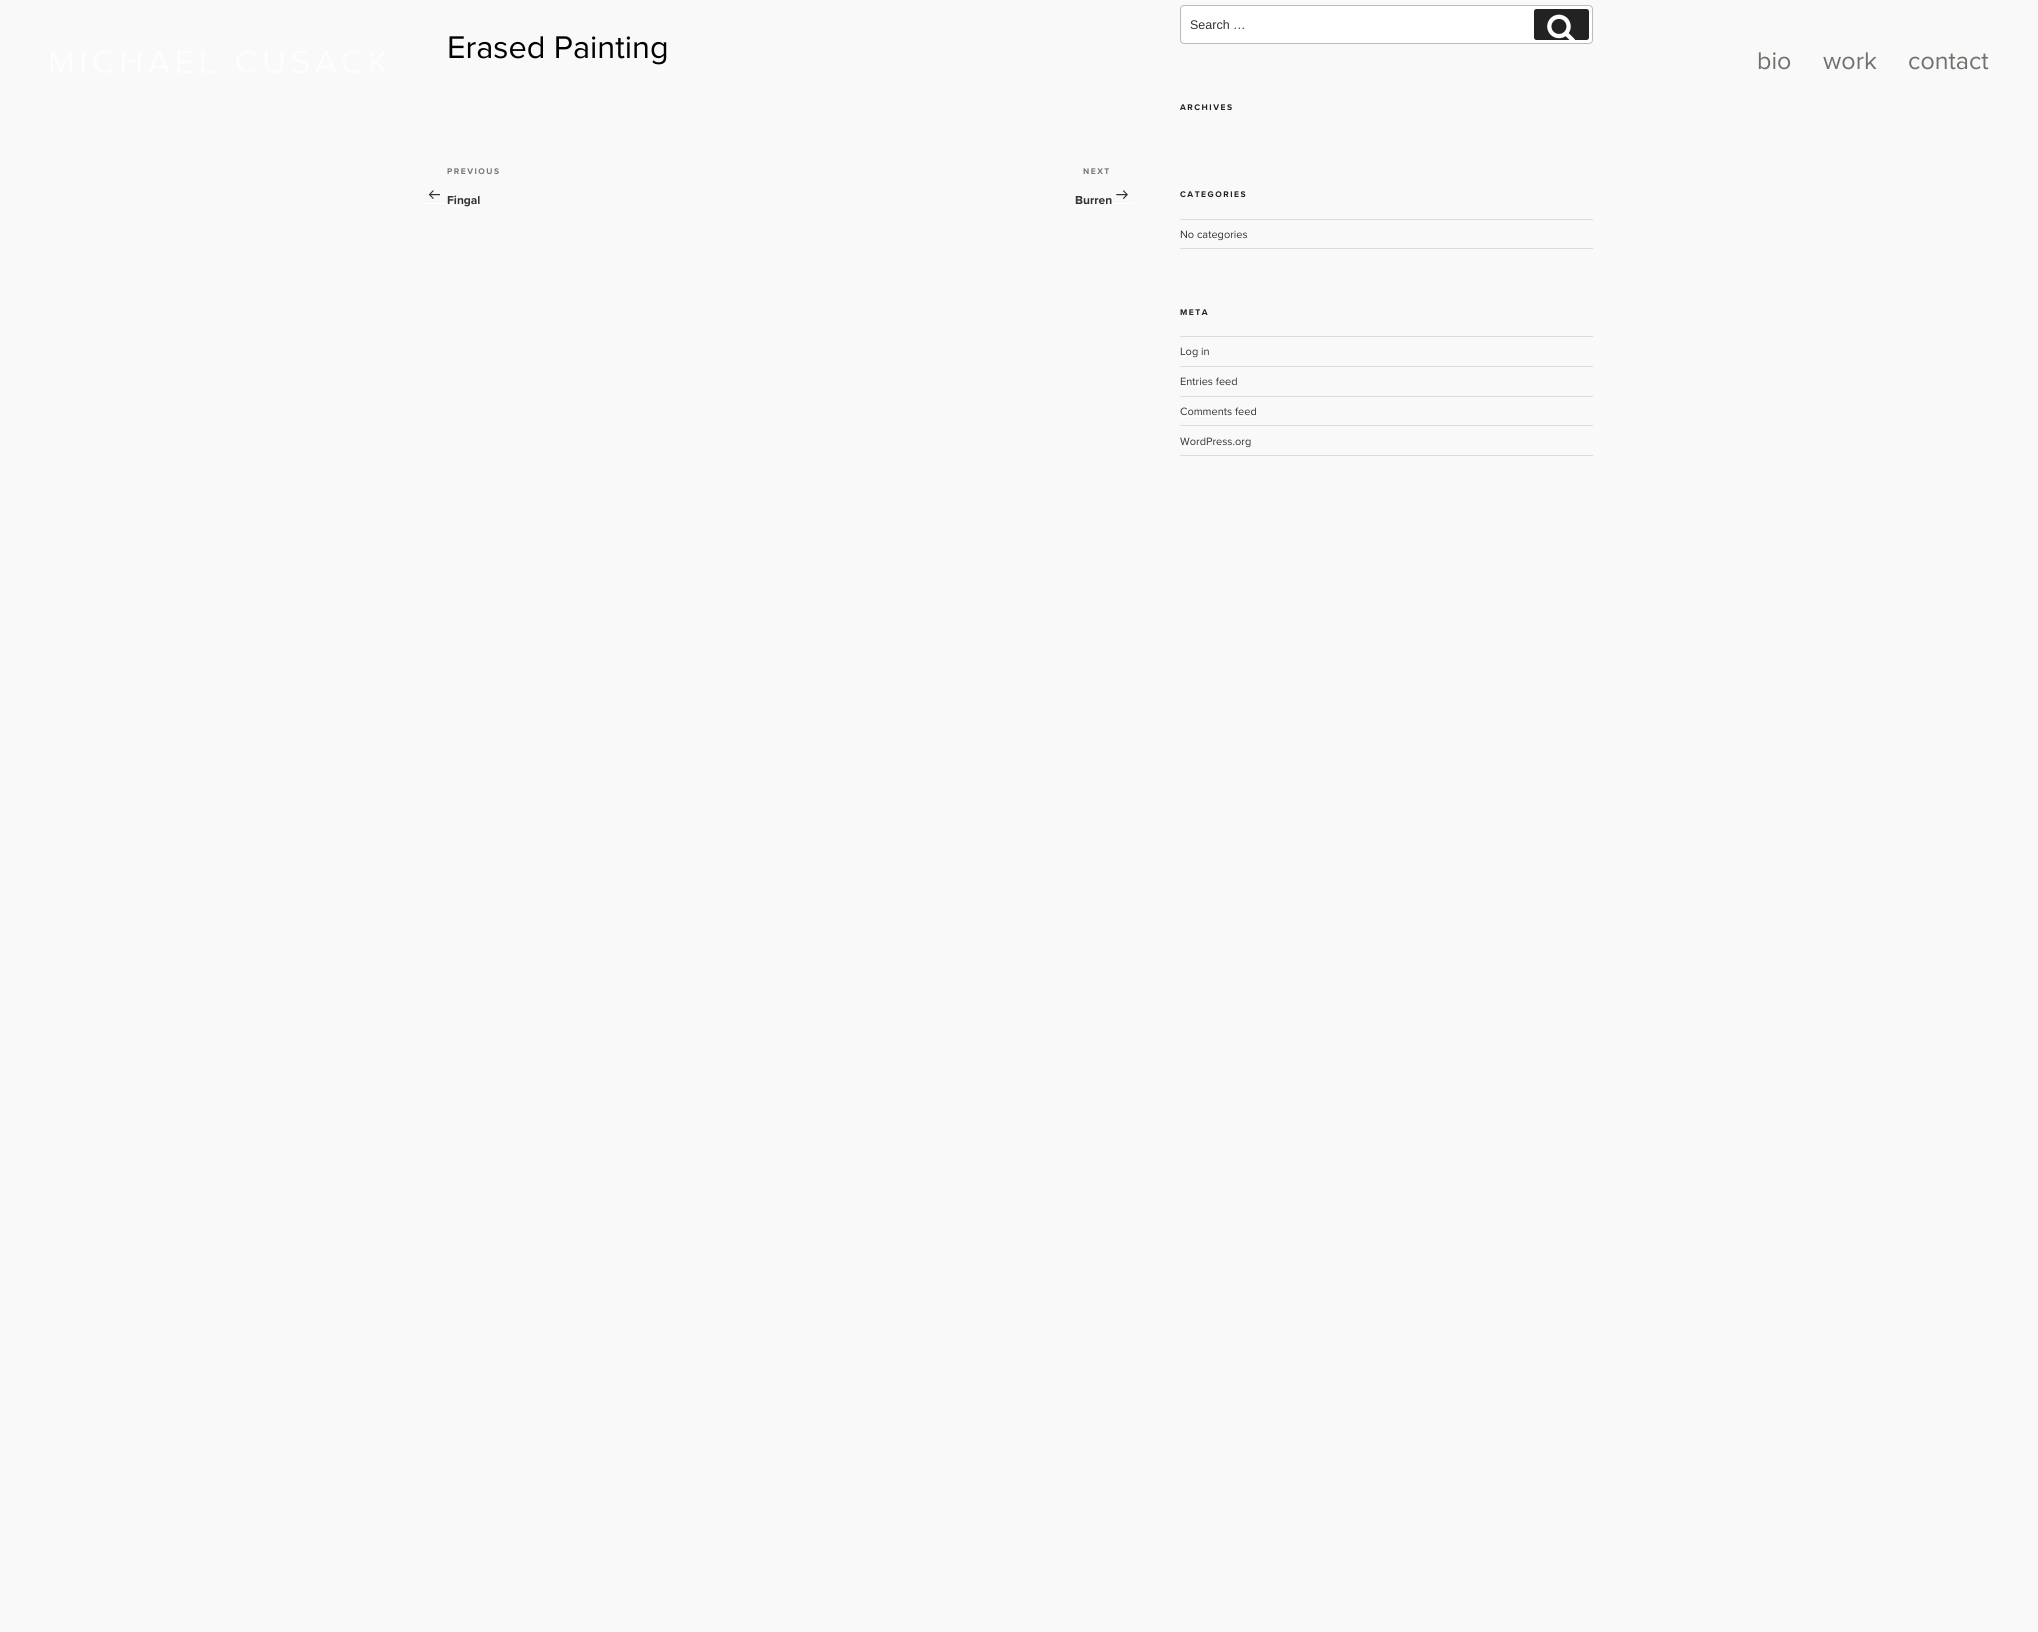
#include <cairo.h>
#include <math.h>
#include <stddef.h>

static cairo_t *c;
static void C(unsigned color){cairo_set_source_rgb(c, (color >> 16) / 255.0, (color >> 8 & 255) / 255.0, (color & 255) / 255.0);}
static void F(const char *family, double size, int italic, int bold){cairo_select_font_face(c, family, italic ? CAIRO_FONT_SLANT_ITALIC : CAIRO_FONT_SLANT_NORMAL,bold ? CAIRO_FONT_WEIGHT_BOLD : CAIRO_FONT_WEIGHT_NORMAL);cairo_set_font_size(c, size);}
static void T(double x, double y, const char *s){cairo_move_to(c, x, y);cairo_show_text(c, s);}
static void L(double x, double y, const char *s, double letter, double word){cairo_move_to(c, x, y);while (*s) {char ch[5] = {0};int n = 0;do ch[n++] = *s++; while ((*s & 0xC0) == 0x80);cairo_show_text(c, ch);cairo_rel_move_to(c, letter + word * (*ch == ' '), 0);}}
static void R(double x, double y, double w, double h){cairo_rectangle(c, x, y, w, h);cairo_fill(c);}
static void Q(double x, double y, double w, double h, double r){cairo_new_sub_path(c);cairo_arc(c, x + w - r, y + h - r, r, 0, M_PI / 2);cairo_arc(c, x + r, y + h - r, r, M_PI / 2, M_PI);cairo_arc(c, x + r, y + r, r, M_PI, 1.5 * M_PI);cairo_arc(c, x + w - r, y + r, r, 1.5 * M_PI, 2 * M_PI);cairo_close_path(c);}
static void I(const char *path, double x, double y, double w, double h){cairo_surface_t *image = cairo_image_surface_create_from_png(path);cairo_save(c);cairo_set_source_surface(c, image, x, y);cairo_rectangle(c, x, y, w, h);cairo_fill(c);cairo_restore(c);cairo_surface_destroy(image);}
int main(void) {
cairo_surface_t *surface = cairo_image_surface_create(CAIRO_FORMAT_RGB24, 2038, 1632);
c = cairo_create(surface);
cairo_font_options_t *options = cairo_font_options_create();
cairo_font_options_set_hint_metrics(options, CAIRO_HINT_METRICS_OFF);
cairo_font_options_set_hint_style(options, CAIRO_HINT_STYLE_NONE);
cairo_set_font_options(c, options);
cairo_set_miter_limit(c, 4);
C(0xfaf9f9);
cairo_paint(c);
F("Proxima Nova",32.5,0,0);
C(0x000000);
T(447,58,"Erased Painting");
C(0xffffff);
R(424,203,24,1);
R(448,206,32,1);
F("Proxima Nova",8.5,0,1);
C(0x767676);
L(447,174,"PREVIOUS",1.5,0);
I("1.png",429,190,11,9);
F("Proxima Nova",12,0,1);
C(0x333333);
T(447,204,"Fingal");
C(0xffffff);
R(1075,206,36,1);
R(1111,203,24,1);
F("Proxima Nova",8.5,0,1);
C(0x767676);
L(1083,174,"NEXT",1.5,0);
I("2.png",1116,190,12,9);
F("Proxima Nova",12,0,1);
C(0x333333);
T(1075,204,"Burren");
C(0xffffff);
Q(1180.5,5.5,412,38,3.5);
cairo_fill_preserve(c);
C(0xbbbbbb);
cairo_set_line_width(c,1);
cairo_stroke(c);
F("Liberation Sans",12.5,0,0);
C(0x333333);
T(1190,29,"Search …");
C(0x222222);
Q(1534,9,55,31,2.5);
cairo_fill(c);
I("3.png",1547,14,28,26);
F("Proxima Nova",8.5,0,1);
L(1180,110,"ARCHIVES",1.5,0);
L(1180,197,"CATEGORIES",1.5,0);
C(0xdddddd);
R(1180,219,413,1);
R(1180,248,413,1);
F("Proxima Nova",11,0,0);
C(0x333333);
T(1180,238,"No categories");
F("Proxima Nova",8.5,0,1);
C(0x222222);
L(1180,315,"META",1.5,0);
C(0xdddddd);
R(1180,336,413,1);
R(1180,366,413,1);
C(0xffffff);
R(1180,356,29,1);
F("Proxima Nova",11,0,0);
C(0x333333);
T(1180,355,"Log in");
C(0xdddddd);
R(1180,396,413,1);
C(0x333333);
T(1180,385,"Entries feed");
C(0xffffff);
R(1180,386,58,1);
C(0xdddddd);
R(1180,425,413,1);
C(0x333333);
T(1180,415,"Comments feed");
C(0xffffff);
R(1180,416,76,1);
C(0xdddddd);
R(1180,455,413,1);
C(0xffffff);
R(1180,446,70,1);
C(0x333333);
T(1180,445,"WordPress.org");
I("4.png",51,51,334,22);
F("Proxima Nova",25,0,0);
C(0x73706b);
T(1757,69,"bio");
T(1823,69,"work");
T(1908,69,"contact");
cairo_surface_write_to_png(surface, "o.png");
cairo_font_options_destroy(options);
cairo_destroy(c);
cairo_surface_destroy(surface);
return 0;
}
